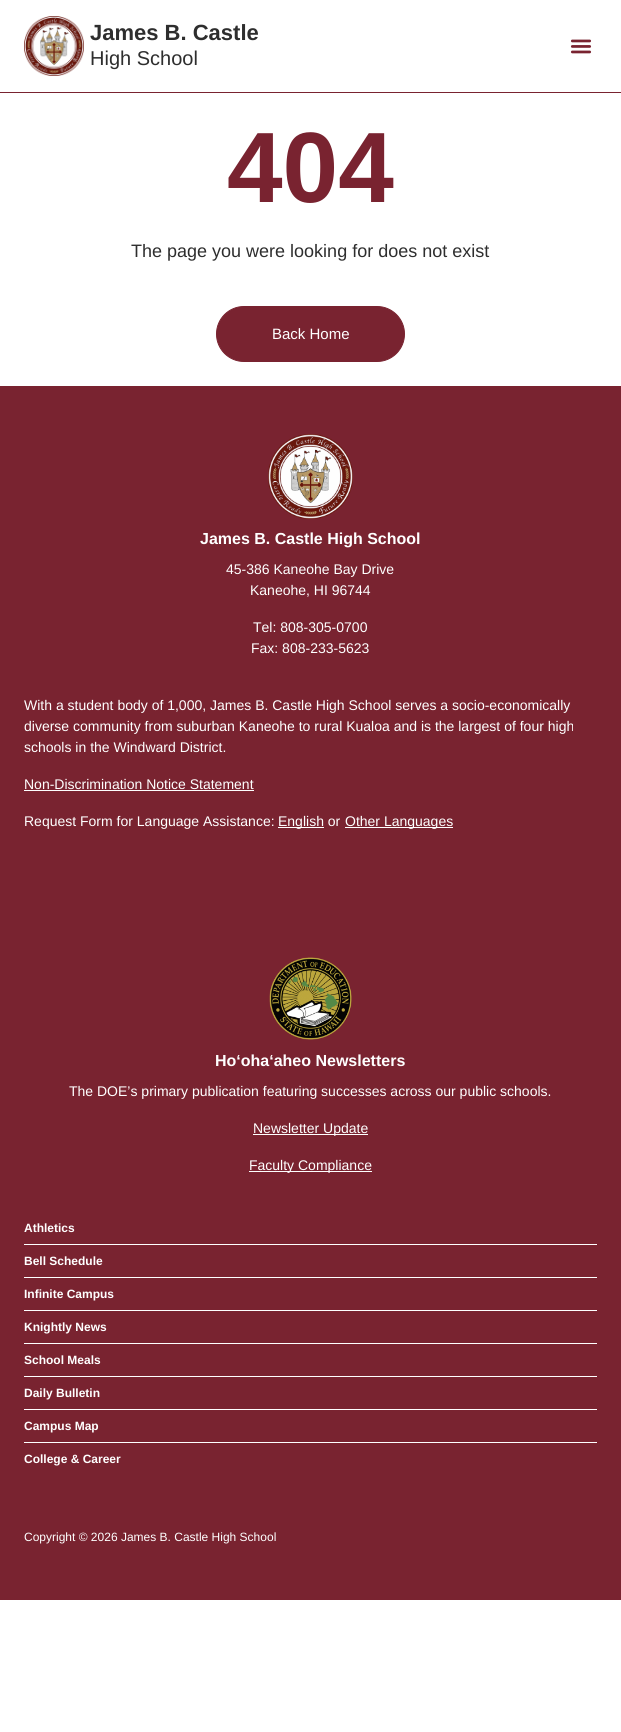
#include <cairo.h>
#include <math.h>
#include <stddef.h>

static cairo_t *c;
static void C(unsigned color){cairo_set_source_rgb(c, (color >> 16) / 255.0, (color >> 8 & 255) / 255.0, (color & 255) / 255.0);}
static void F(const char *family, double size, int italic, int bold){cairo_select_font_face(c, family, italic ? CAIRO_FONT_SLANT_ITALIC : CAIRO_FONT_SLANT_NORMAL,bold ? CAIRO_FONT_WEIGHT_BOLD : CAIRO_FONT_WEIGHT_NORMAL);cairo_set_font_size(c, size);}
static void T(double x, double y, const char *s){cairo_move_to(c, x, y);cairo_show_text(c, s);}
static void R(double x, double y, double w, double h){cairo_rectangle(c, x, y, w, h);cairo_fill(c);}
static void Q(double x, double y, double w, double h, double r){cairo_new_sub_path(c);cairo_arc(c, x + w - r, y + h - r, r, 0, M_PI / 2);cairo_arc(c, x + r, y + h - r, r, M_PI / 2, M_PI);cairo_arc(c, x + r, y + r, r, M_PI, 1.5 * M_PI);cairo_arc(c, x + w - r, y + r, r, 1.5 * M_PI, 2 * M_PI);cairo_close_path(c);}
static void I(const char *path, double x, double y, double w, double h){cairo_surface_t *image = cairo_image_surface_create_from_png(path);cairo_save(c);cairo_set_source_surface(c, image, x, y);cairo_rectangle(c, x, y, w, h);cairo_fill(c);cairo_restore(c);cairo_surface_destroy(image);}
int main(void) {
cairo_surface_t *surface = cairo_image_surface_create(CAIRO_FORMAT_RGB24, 621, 1732);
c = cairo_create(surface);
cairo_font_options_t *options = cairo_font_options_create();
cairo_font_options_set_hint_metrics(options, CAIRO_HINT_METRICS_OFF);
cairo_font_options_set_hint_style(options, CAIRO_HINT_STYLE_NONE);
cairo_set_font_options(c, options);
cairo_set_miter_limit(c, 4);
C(0xffffff);
cairo_paint(c);
C(0x792330);
R(0,92,621,1);
I("1.png",24,16,60,60);
F("Liberation Sans",22,0,1);
C(0x2e2e2e);
T(90,40,"James B. Castle");
F("Liberation Sans",20,0,0);
T(90,65,"High School");
I("2.png",570,39,22,15);
F("Liberation Sans",100,0,1);
C(0x792330);
T(227,202,"404");
F("Liberation Sans",18,0,0);
C(0x2e2e2e);
T(131,257,"The page you were looking for does not exist");
C(0x792330);
Q(216.5,306.5,188,55,27.5);
cairo_fill_preserve(c);
cairo_set_line_width(c,1);
cairo_stroke(c);
F("Liberation Sans",15,0,0);
C(0xffffff);
T(272,339,"Back Home");
C(0x792330);
R(0,386,621,1214);
I("3.png",268,434,85,85);
F("Liberation Sans",16,0,1);
C(0xffffff);
T(200,544,"James B. Castle High School");
F("Liberation Sans",14,0,0);
T(226,574,"45-386 Kaneohe Bay Drive");
T(250,595,"Kaneohe, HI 96744");
T(253,632,"Tel: 808-305-0700");
T(251,653,"Fax: 808-233-5623");
T(24,710,"With a student body of 1,000, James B. Castle High School serves a socio-economically");
T(24,731,"diverse community from suburban Kaneohe to rural Kualoa and is the largest of four high");
T(24,752,"schools in the Windward District.");
T(24,789,"Non-Discrimination Notice Statement");
R(24,790,230,1);
T(24,826,"Request Form for Language Assistance:");
R(278,827,46,1);
T(278,826,"English or");
R(345,827,108,1);
T(345,826,"Other Languages");
I("4.png",269,957,83,83);
F("Liberation Sans",16,0,1);
T(215,1066,"Ho‘oha‘aheo Newsletters");
F("Liberation Sans",14,0,0);
T(69,1096,"The DOE’s primary publication featuring successes across our public schools.");
R(253,1134,115,1);
T(253,1133,"Newsletter Update");
R(249,1171,123,1);
T(249,1170,"Faculty Compliance");
R(24,1244,573,1);
F("Liberation Sans",12,0,1);
T(24,1232,"Athletics");
R(24,1277,573,1);
T(24,1265,"Bell Schedule");
R(24,1310,573,1);
T(24,1298,"Infinite Campus");
R(24,1343,573,1);
T(24,1331,"Knightly News");
R(24,1376,573,1);
T(24,1364,"School Meals");
R(24,1409,573,1);
T(24,1397,"Daily Bulletin");
R(24,1442,573,1);
T(24,1430,"Campus Map");
T(24,1463,"College & Career");
F("Liberation Sans",12,0,0);
T(24,1541,"Copyright © 2026 James B. Castle High School");
cairo_surface_write_to_png(surface, "o.png");
cairo_font_options_destroy(options);
cairo_destroy(c);
cairo_surface_destroy(surface);
return 0;
}
